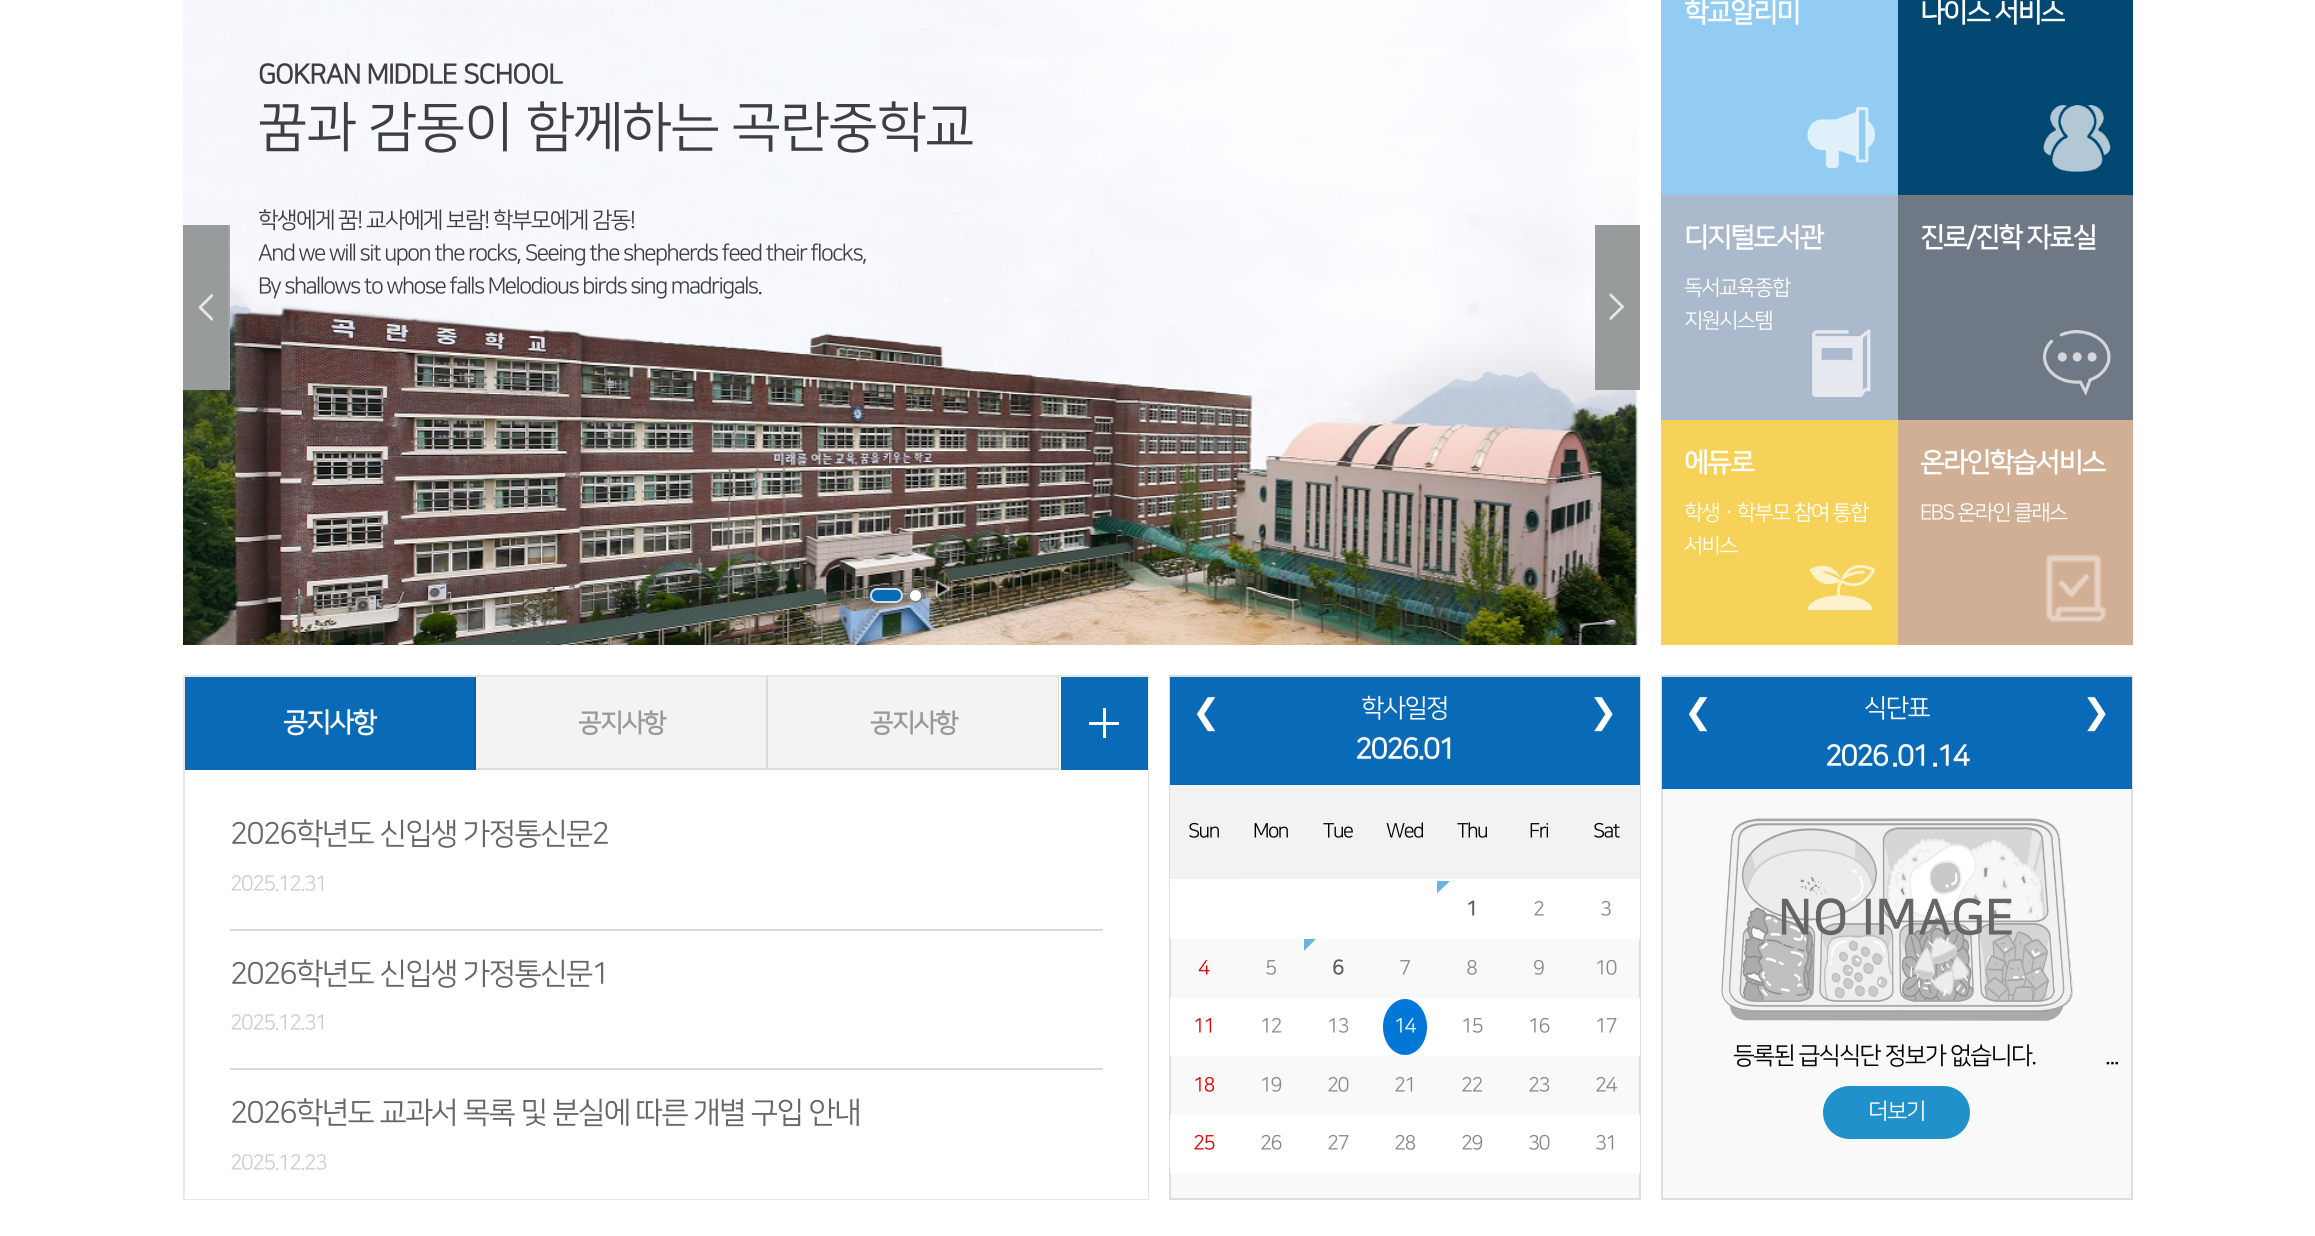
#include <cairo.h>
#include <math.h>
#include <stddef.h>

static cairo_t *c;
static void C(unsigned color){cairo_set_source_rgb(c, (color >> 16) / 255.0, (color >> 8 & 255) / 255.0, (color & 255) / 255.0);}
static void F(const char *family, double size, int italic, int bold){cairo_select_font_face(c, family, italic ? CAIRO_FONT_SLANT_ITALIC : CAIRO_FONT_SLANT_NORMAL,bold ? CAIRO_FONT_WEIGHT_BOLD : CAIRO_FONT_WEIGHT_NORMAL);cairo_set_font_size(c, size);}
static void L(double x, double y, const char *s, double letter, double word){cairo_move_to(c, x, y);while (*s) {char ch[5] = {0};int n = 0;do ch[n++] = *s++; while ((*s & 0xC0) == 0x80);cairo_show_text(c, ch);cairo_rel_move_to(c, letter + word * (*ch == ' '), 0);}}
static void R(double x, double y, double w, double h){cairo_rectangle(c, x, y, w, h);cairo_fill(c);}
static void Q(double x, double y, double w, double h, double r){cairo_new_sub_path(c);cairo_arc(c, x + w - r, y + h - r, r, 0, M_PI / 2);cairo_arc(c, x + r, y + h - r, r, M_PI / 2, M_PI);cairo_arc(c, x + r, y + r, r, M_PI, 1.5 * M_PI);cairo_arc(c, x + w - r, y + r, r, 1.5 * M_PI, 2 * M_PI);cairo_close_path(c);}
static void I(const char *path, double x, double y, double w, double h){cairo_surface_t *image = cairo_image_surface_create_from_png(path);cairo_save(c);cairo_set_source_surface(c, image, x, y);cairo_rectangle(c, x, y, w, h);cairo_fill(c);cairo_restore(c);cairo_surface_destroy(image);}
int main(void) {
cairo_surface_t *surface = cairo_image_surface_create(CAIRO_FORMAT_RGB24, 2315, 1236);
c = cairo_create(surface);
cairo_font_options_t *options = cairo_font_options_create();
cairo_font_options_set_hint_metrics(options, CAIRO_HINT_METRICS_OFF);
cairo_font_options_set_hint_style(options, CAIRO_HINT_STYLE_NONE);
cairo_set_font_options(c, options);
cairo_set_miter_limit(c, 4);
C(0xffffff);
cairo_paint(c);
I("2.png",183,0,1457,645);
C(0x979b9c);
R(183,225,45,165);
I("1.png",198,294,15,27);
C(0xa1a5a6);
R(228,225,2,165);
F("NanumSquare",27,0,1);
C(0x3f3f3f);
L(258,83,"GOKRAN MIDDLE SCHOOL",-.75,0);
F("NanumSquare",54,0,0);
L(258,144,"꿈과 감동이 함께하는 곡란중학교",-.75,0);
F("NanumSquare",22.5,0,0);
L(258,227,"학생에게 꿈! 교사에게 보람! 학부모에게 감동!",-1.5,0);
L(258,260,"And we will sit upon the rocks, Seeing the shepherds feed their flocks,",-1.5,0);
L(258,293,"By shallows to whose falls Melodious birds sing madrigals.",-1.5,0);
C(0x979b9c);
R(1595,225,45,165);
I("3.png",1609,293,16,28);
C(0x096ab7);
Q(870,588,33,15,7.5);
cairo_fill(c);
Q(871,589,31,13,6.5);
cairo_set_source_rgba(c,1,1,1,0.8);
cairo_stroke(c);
C(0xffffff);
cairo_arc(c,915.5,595.5,7.5,0,2 * M_PI);
cairo_fill(c);
cairo_arc(c,915.5,595.5,6.5,0,2 * M_PI);
cairo_set_source_rgba(c,0,0,0,0.5);
cairo_stroke(c);
I("4.png",934,580,18,18);
C(0x92ccf2);
R(1661,0,237,195);
F("NanumSquare",27,0,1);
C(0xffffff);
L(1684,21,"학교알리미",-1.5,0);
I("5.png",1807,107,68,61);
C(0x004771);
R(1898,0,235,195);
C(0xffffff);
L(1920,21,"나이스 서비스",-1.5,0);
I("6.png",2043,105,68,67);
C(0xaab9cc);
R(1661,195,237,225);
C(0xffffff);
L(1684,246,"디지털도서관",-1.5,0);
F("NanumSquare",21,0,0);
L(1684,294,"독서교육종합",-1.5,0);
L(1684,327,"지원시스템",-1.5,0);
I("7.png",1812,329,59,68);
C(0x6f7985);
R(1898,195,235,225);
F("NanumSquare",27,0,1);
C(0xffffff);
L(1920,246,"진로/진학 자료실",-1.5,0);
I("8.png",2043,330,68,66);
C(0xf6d258);
R(1661,420,237,225);
C(0xffffff);
L(1684,471,"에듀로",-1.5,0);
F("NanumSquare",21,0,0);
L(1684,519,"학생ㆍ학부모 참여 통합",-1.5,0);
L(1684,552,"서비스",-1.5,0);
I("9.png",1807,565,68,46);
C(0xd1af94);
R(1898,420,235,225);
F("NanumSquare",27,0,1);
C(0xffffff);
L(1920,471,"온라인학습서비스",-1.5,0);
F("NanumSquare",21,0,0);
L(1920,519,"EBS 온라인 클래스",-1.5,0);
I("10.png",2046,554,61,68);
cairo_rectangle(c,184,676,964,523);
C(0xe6e6e6);
cairo_stroke(c);
C(0x096ab7);
R(185,677,289,93);
C(0x085fa5);
R(474,677,2,93);
F("NanumSquare",27,0,1);
C(0xffffff);
L(283,731,"공지사항",-1.5,0);
C(0x096ab7);
R(1061,677,87,93);
C(0xffffff);
R(1103,708,3,30);
R(1089,722,30,3);
R(185,770,963,429);
C(0xd9d9d9);
R(230,929,873,2);
F("NanumSquare",30,0,0);
C(0x666666);
L(230,843,"2026학년도 신입생 가정통신문2",-1.5,0);
F("NanumSquare",21,0,0);
C(0xcccccc);
L(230,890,"2025.12.31",-1.5,0);
C(0xd9d9d9);
R(230,1068,873,2);
F("NanumSquare",30,0,0);
C(0x666666);
L(230,983,"2026학년도 신입생 가정통신문1",-1.5,0);
F("NanumSquare",21,0,0);
C(0xcccccc);
L(230,1029,"2025.12.31",-1.5,0);
F("NanumSquare",30,0,0);
C(0x666666);
L(230,1122,"2026학년도 교과서 목록 및 분실에 따른 개별 구입 안내",-1.5,0);
F("NanumSquare",21,0,0);
C(0xcccccc);
L(230,1169,"2025.12.23",-1.5,0);
C(0xf3f3f3);
R(476,677,583,93);
C(0xdbdbdb);
cairo_new_path(c);
cairo_move_to(c,768,676);
cairo_line_to(c,768,770);
cairo_line_to(c,766,768);
cairo_line_to(c,766,676);
cairo_close_path(c);
cairo_fill(c);
cairo_set_source_rgba(c,0,0,0,0.1);
cairo_new_path(c);
cairo_move_to(c,768,770);
cairo_line_to(c,476,770);
cairo_line_to(c,476,768);
cairo_line_to(c,766,768);
cairo_close_path(c);
cairo_fill(c);
F("NanumSquare",25.5,0,1);
C(0x999999);
L(578,731,"공지사항",-1.5,0);
C(0xdbdbdb);
cairo_new_path(c);
cairo_move_to(c,1059,676);
cairo_line_to(c,1059,770);
cairo_line_to(c,1058,768);
cairo_line_to(c,1058,676);
cairo_close_path(c);
cairo_fill(c);
cairo_set_source_rgba(c,0,0,0,0.1);
cairo_new_path(c);
cairo_move_to(c,1059,770);
cairo_line_to(c,768,770);
cairo_line_to(c,768,768);
cairo_line_to(c,1058,768);
cairo_close_path(c);
cairo_fill(c);
C(0x999999);
L(870,731,"공지사항",-1.5,0);
C(0xf9f9f9);
R(1171,939,468,259);
cairo_rectangle(c,1170,676,470,523);
C(0xdddddd);
cairo_stroke(c);
C(0x096ab7);
R(1170,677,470,108);
F("DejaVu Sans",34,0,0);
C(0xffffff);
L(1192,723,"❮",-1.5,0);
F("NanumSquare",25.5,0,0);
L(1361,716,"학사일정",-1.5,0);
F("NanumSquare",28.5,0,1);
L(1355,758,"2026.01",-1.5,0);
F("DejaVu Sans",34,0,0);
L(1589,723,"❯",-1.5,0);
C(0xf2f2f2);
R(1170,785,66,96);
cairo_set_source_rgba(c,1,1,1,0.9);
R(1169,879,69,2);
F("NanumSquare",20,0,0);
C(0x000000);
L(1188,837,"Sun",-1.5,0);
C(0xf2f2f2);
R(1236,785,404,94);
C(0x000000);
L(1253,837,"Mon",-1.5,0);
L(1323,837,"Tue",-1.5,0);
L(1386,837,"Wed",-1.5,0);
L(1457,837,"Thu",-1.5,0);
L(1529,837,"Fri",-1.5,0);
C(0xfefefe);
R(1639,879,1,2);
C(0x000000);
L(1593,837,"Sat",-1.5,0);
C(0xffffff);
R(1170,881,470,58);
cairo_save(c);
cairo_rectangle(c,1437,881,68,58);
cairo_clip(c);
C(0x6bb3e0);
cairo_new_path(c);
cairo_move_to(c,1437.5,868);
cairo_line_to(c,1450.5,880.5);
cairo_line_to(c,1437.5,893);
cairo_line_to(c,1425,880.5);
cairo_close_path(c);
cairo_fill(c);
cairo_restore(c);
F("NanumSquare",20,0,1);
C(0x5e5e5e);
L(1466,915,"1",-1.5,0);
F("NanumSquare",20,0,0);
C(0x88888a);
L(1533,915,"2",-1.5,0);
L(1600,915,"3",-1.5,0);
C(0xe60000);
L(1198,974,"4",-1.5,0);
C(0x88888a);
L(1265,974,"5",-1.5,0);
cairo_save(c);
cairo_rectangle(c,1304,939,67,59);
cairo_clip(c);
C(0x6ab2de);
cairo_new_path(c);
cairo_move_to(c,1303.5,926.5);
cairo_line_to(c,1316,939);
cairo_line_to(c,1303.5,951.5);
cairo_line_to(c,1290.5,939);
cairo_close_path(c);
cairo_fill(c);
cairo_restore(c);
F("NanumSquare",20,0,1);
C(0x5e5e5e);
L(1332,974,"6",-1.5,0);
F("NanumSquare",20,0,0);
C(0x88888a);
L(1399,974,"7",-1.5,0);
L(1466,974,"8",-1.5,0);
L(1533,974,"9",-1.5,0);
L(1595,974,"10",-1.5,0);
C(0xffffff);
R(1170,998,470,58);
C(0xe60000);
L(1193,1032,"11",-1.5,0);
C(0x88888a);
L(1260,1032,"12",-1.5,0);
L(1327,1032,"13",-1.5,0);
C(0x0177d7);
cairo_new_path(c);
cairo_move_to(c,1405,999);
cairo_curve_to(c,1417,999,1427,1011.5,1427,1027);
cairo_curve_to(c,1427,1042.5,1417,1055,1405,1055);
cairo_curve_to(c,1393,1055,1383,1042.5,1383,1027);
cairo_curve_to(c,1383,1011.5,1393,999,1405,999);
cairo_close_path(c);
cairo_fill(c);
C(0xffffff);
L(1394,1032,"14",-1.5,0);
C(0x88888a);
L(1461,1032,"15",-1.5,0);
L(1528,1032,"16",-1.5,0);
L(1595,1032,"17",-1.5,0);
C(0xe60000);
L(1193,1091,"18",-1.5,0);
C(0x88888a);
L(1260,1091,"19",-1.5,0);
L(1327,1091,"20",-1.5,0);
L(1394,1091,"21",-1.5,0);
L(1461,1091,"22",-1.5,0);
L(1528,1091,"23",-1.5,0);
L(1595,1091,"24",-1.5,0);
C(0xffffff);
R(1170,1115,470,58);
C(0xe60000);
L(1193,1149,"25",-1.5,0);
C(0x88888a);
L(1260,1149,"26",-1.5,0);
L(1327,1149,"27",-1.5,0);
L(1394,1149,"28",-1.5,0);
L(1461,1149,"29",-1.5,0);
L(1528,1149,"30",-1.5,0);
L(1595,1149,"31",-1.5,0);
C(0xf9f9f9);
R(1663,789,468,409);
cairo_rectangle(c,1662,676,470,523);
C(0xdddddd);
cairo_stroke(c);
C(0x096ab7);
R(1662,677,470,112);
F("DejaVu Sans",34,0,0);
C(0xffffff);
L(1684,723,"❮",-1.5,0);
F("NanumSquare",25.5,0,0);
L(1864,716,"식단표",-1.5,0);
F("NanumSquare",28.5,0,1);
L(1825,765,"2026",-1.5,0);
F("NanumSquare",30,0,1);
L(1891,765,".",-1.5,0);
F("NanumSquare",28.5,0,1);
L(1897,765,"01",-1.5,0);
F("NanumSquare",30,0,1);
L(1931,765,".",-1.5,0);
F("NanumSquare",28.5,0,1);
L(1937,765,"14",-1.5,0);
F("DejaVu Sans",34,0,0);
L(2082,723,"❯",-1.5,0);
I("11.png",1720,818,353,203);
F("NanumSquare",24,0,0);
C(0x000000);
L(1733,1063,"등록된 급식식단 정보가 없습니다.",-1.5,0);
cairo_save(c);
cairo_rectangle(c,1674,1041,444,30);
cairo_clip(c);
L(2105,1063,"...",-1.5,0);
cairo_restore(c);
C(0x2091cb);
Q(1823,1086,147,53,26.5);
cairo_fill(c);
F("NanumSquare",22.5,0,0);
C(0xffffff);
L(1868,1118,"더보기",-1.5,0);
cairo_surface_write_to_png(surface, "o.png");
cairo_font_options_destroy(options);
cairo_destroy(c);
cairo_surface_destroy(surface);
return 0;
}
